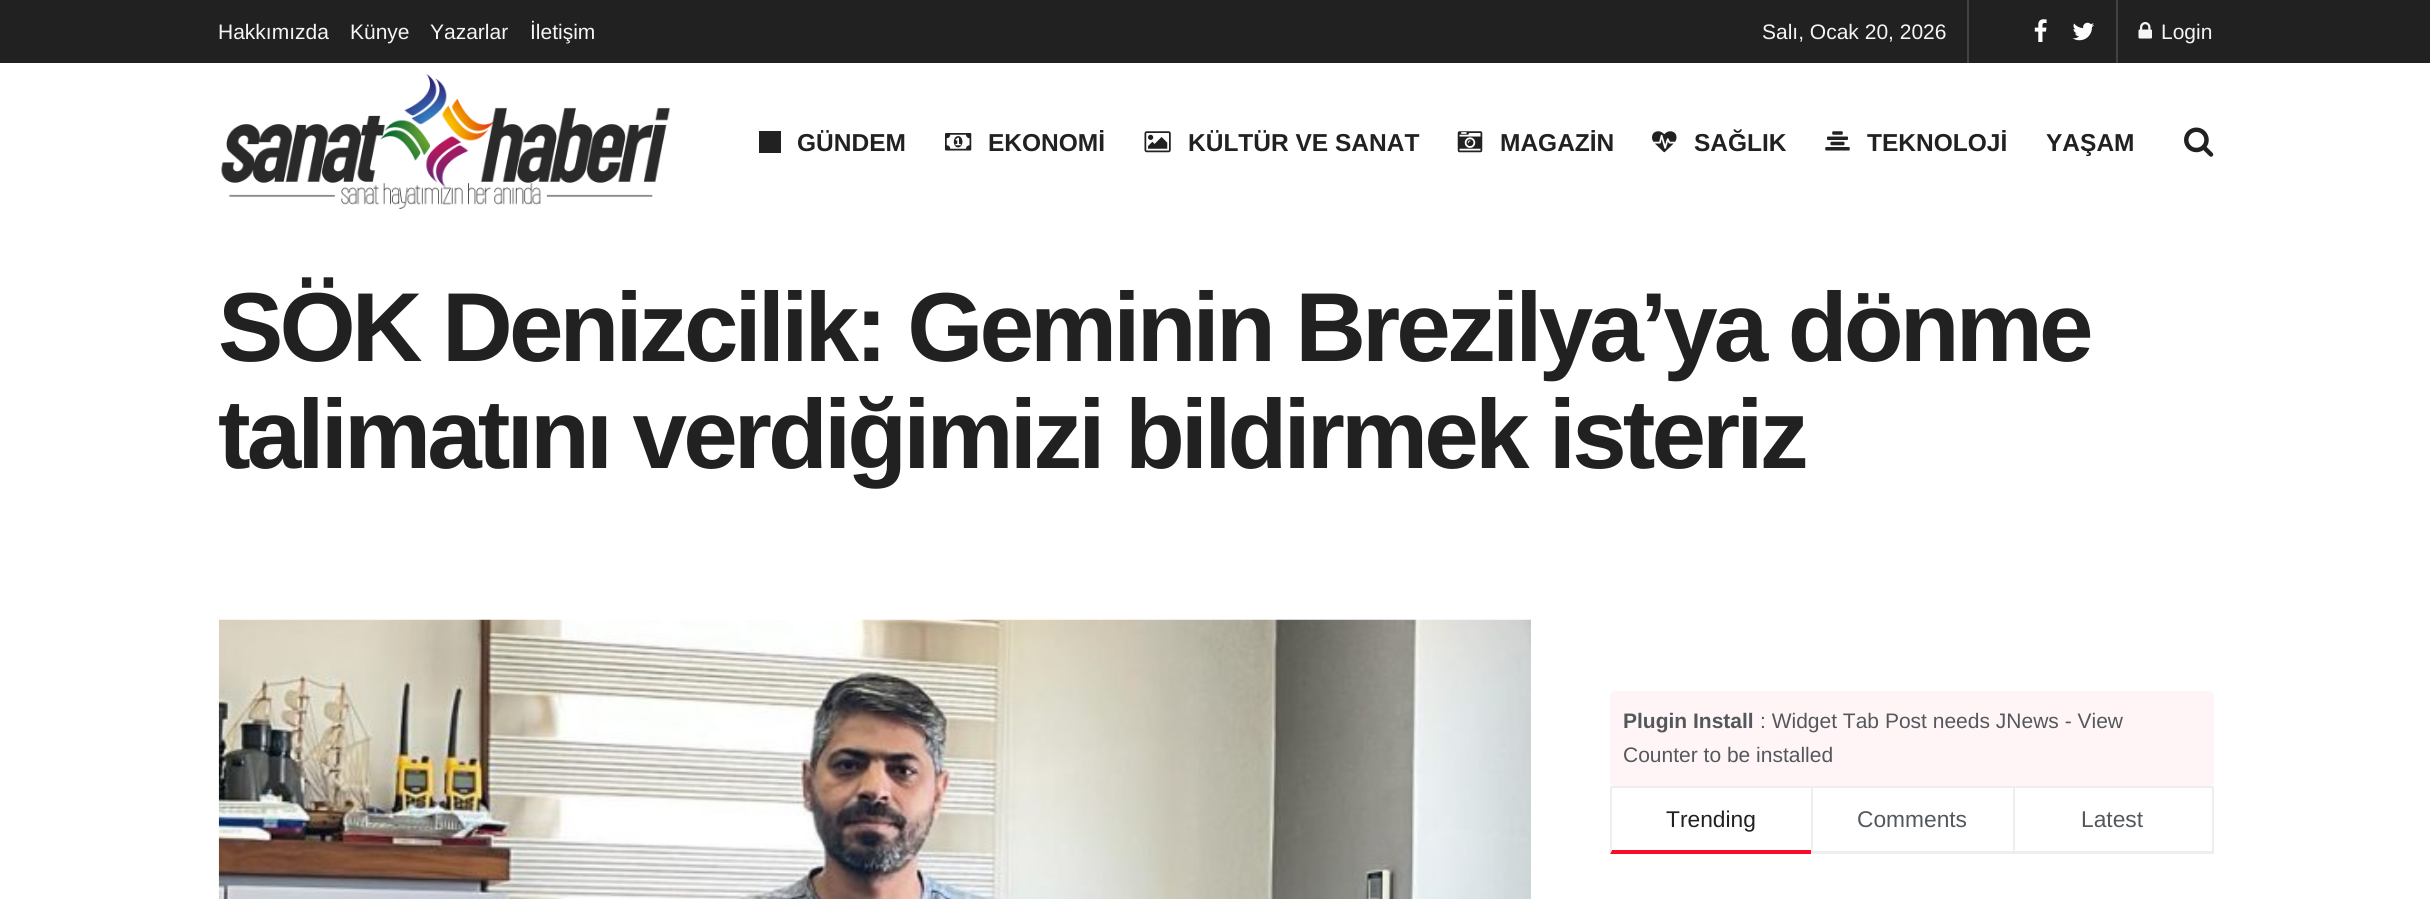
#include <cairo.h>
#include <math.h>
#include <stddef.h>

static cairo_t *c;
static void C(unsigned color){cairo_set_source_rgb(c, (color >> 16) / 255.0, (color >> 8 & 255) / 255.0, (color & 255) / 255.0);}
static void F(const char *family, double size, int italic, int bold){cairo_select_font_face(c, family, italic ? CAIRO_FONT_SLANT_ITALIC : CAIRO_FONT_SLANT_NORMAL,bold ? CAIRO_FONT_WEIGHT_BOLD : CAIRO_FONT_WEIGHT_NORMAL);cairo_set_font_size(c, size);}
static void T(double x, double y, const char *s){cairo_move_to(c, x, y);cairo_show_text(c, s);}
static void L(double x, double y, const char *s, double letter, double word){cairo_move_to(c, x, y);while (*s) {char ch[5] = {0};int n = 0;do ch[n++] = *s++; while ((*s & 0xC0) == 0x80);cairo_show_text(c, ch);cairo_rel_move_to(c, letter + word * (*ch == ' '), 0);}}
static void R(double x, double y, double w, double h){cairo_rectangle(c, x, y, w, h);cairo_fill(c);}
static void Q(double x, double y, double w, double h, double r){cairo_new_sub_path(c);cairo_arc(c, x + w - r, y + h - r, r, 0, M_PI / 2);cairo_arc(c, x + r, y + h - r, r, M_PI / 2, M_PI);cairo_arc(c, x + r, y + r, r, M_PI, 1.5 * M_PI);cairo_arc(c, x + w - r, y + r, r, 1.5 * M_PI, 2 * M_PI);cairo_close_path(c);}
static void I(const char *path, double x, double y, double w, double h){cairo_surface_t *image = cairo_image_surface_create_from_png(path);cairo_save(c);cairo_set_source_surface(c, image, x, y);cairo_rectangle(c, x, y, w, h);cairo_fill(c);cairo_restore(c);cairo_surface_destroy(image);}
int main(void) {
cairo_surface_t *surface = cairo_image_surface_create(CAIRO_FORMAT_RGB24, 2430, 899);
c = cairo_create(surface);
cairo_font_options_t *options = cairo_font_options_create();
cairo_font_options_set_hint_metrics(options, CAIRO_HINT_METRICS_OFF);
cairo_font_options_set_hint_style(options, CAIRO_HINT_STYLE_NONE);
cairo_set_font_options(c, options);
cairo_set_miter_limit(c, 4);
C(0xffffff);
cairo_paint(c);
C(0x212121);
R(0,0,2430,63);
C(0x424242);
R(2116,0,2,63);
F("Liberation Sans",21,0,0);
C(0xf5f5f5);
T(218,39,"Hakkımızda");
T(350,39,"Künye");
T(430,39,"Yazarlar");
T(530,39,"İletişim");
C(0x424242);
R(1967,0,2,63);
C(0xf5f5f5);
T(1762,39,"Salı, Ocak 20, 2026");
I("1.png",2034,19,13,23);
I("2.png",2072,22,22,19);
I("3.png",2138,22,14,17);
T(2161,39,"Login");
I("4.png",221,73,450,136);
C(0x212121);
R(759,131,22,22);
F("Liberation Sans",24.5,0,1);
T(797,151,"GÜNDEM");
I("5.png",945,133,27,18);
T(988,151,"EKONOMİ");
I("6.png",1144,131,27,22);
T(1188,151,"KÜLTÜR VE SANAT");
I("7.png",1457,131,26,22);
T(1500,151,"MAGAZİN");
I("8.png",1652,131,25,22);
T(1694,151,"SAĞLIK");
I("9.png",1825,131,25,20);
T(1867,151,"TEKNOLOJİ");
T(2046,151,"YAŞAM");
I("10.png",2184,127,30,30);
F("Liberation Sans",98,0,1);
L(218,361,"SÖK Denizcilik: Geminin Brezilya’ya dönme",-3.9,0);
L(218,468,"talimatını verdiğimizi bildirmek isteriz",-3.9,0);
I("11.png",218,619,1313,280);
C(0xfff5f6);
Q(1610,691,604,95,5);
cairo_fill(c);
F("Liberation Sans",21,0,1);
C(0x53585c);
T(1623,728,"Plugin Install");
F("Liberation Sans",21,0,0);
T(1760,728,": Widget Tab Post needs JNews - View");
T(1623,762,"Counter to be installed");
C(0xeeeeee);
R(1610,786,604,2);
C(0xf70d28);
cairo_new_path(c);
cairo_move_to(c,1811,854);
cairo_line_to(c,1610,854);
cairo_line_to(c,1612,850);
cairo_line_to(c,1811,850);
cairo_close_path(c);
cairo_fill(c);
C(0xeeeeee);
cairo_new_path(c);
cairo_move_to(c,1610,854);
cairo_line_to(c,1610,786);
cairo_line_to(c,1612,788);
cairo_line_to(c,1612,850);
cairo_close_path(c);
cairo_fill(c);
F("Liberation Sans",22.75,0,0);
C(0x212121);
T(1666,827,"Trending");
C(0xeeeeee);
R(1811,851,202,3);
R(1811,786,2,68);
C(0x53585c);
T(1857,827,"Comments");
C(0xeeeeee);
R(2212,786,2,68);
R(2013,851,201,3);
R(2013,786,2,68);
C(0x53585c);
T(2081,827,"Latest");
cairo_surface_write_to_png(surface, "o.png");
cairo_font_options_destroy(options);
cairo_destroy(c);
cairo_surface_destroy(surface);
return 0;
}
